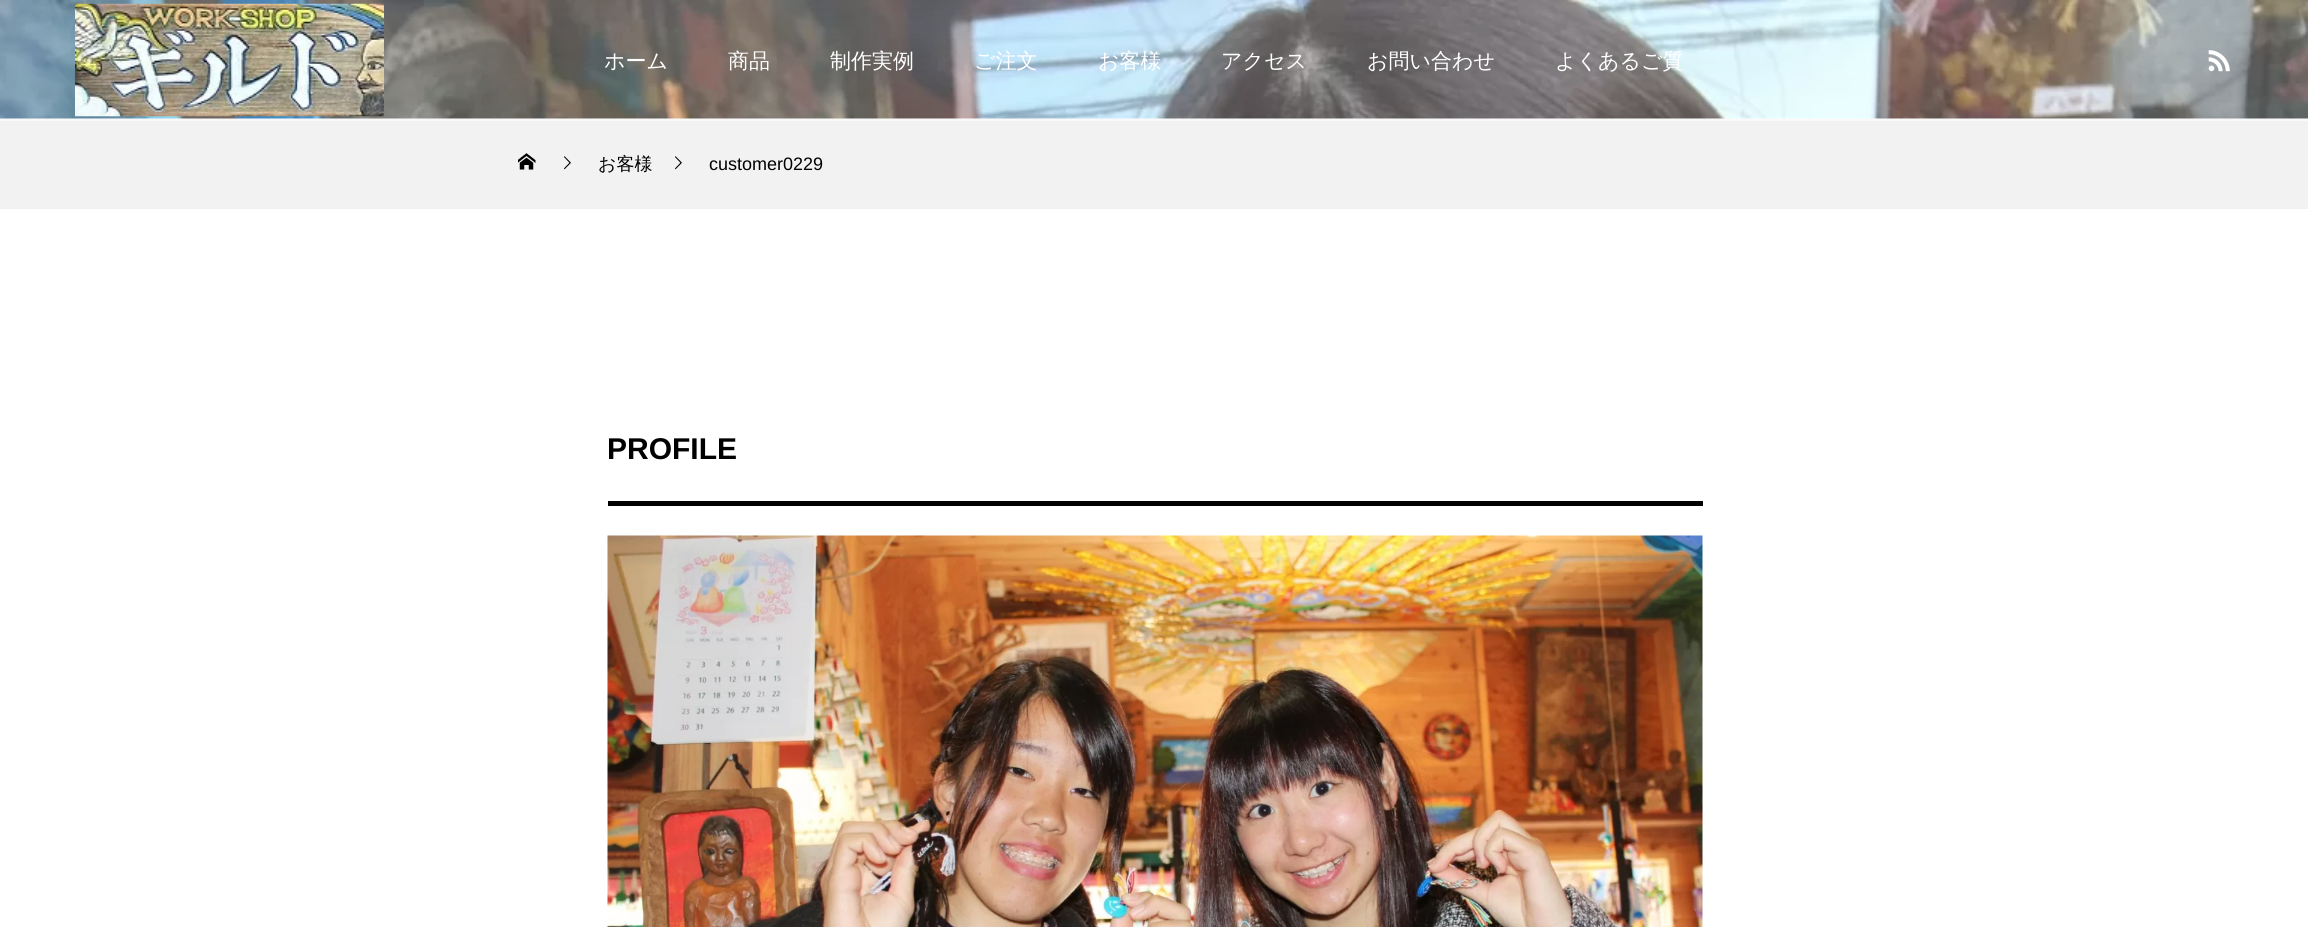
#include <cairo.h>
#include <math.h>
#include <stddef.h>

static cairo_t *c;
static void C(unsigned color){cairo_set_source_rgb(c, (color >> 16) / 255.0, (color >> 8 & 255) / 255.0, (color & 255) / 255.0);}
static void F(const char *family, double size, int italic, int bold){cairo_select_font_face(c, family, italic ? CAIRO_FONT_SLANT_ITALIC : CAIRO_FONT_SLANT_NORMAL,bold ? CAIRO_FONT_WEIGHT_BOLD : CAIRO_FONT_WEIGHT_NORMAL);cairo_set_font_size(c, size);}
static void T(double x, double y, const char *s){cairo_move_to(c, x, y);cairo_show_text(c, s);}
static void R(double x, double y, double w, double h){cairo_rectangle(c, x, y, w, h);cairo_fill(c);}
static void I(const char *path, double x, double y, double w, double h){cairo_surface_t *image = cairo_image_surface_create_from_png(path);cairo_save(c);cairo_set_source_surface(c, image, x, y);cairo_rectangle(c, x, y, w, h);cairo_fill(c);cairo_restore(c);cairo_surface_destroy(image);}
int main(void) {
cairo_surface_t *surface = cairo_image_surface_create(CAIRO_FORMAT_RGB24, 2308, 927);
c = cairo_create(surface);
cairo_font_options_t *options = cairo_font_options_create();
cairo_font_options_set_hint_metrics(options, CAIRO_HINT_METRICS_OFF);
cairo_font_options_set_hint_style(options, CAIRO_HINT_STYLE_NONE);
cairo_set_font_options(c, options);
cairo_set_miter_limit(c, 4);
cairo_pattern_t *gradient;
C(0xffffff);
cairo_paint(c);
I("1.png",0,0,2308,119);
gradient = cairo_pattern_create_linear(1154,0,1154,593);
cairo_pattern_add_color_stop_rgba(gradient,0,1,1,1,.3);
cairo_pattern_add_color_stop_rgba(gradient,1,1,1,1,0);
cairo_set_source(c,gradient);
cairo_pattern_destroy(gradient);
R(0,0,2308,119);
C(0xf9f9f9);
R(0,119,2308,2);
I("2.png",75,3,309,114);
F("WenQuanYi Zen Hei Medium",21,0,0);
C(0xffffff);
T(604,68,"ホーム");
T(728,68,"商品");
T(830,68,"制作実例");
T(974,68,"ご注文");
T(1098,68,"お客様");
T(1221,68,"アクセス");
T(1367,68,"お問い合わせ");
T(1555,68,"よくあるご質");
I("3.png",2208,50,22,22);
C(0xf2f2f2);
R(0,121,2308,88);
I("4.png",518,153,18,17);
I("5.png",564,156,7,14);
F("WenQuanYi Zen Hei Medium",18,0,0);
C(0x000000);
T(598,170,"お客様");
I("5.png",675,156,7,14);
F("Liberation Sans",18,0,0);
T(709,170,"customer0229");
R(608,501,1095,5);
F("Liberation Sans",30,0,1);
T(607,459,"PROFILE");
I("6.png",607,535,1096,392);
cairo_surface_write_to_png(surface, "o.png");
cairo_font_options_destroy(options);
cairo_destroy(c);
cairo_surface_destroy(surface);
return 0;
}
